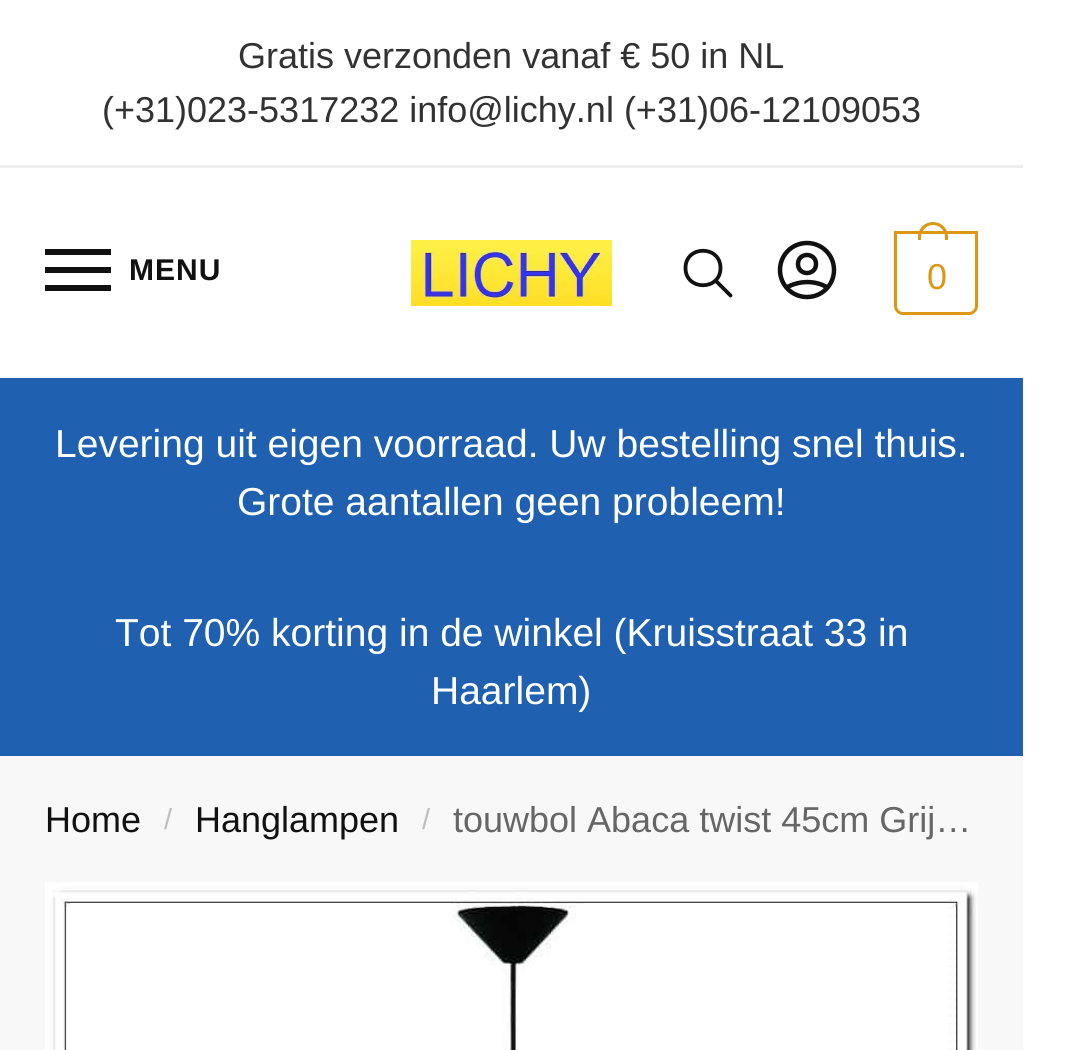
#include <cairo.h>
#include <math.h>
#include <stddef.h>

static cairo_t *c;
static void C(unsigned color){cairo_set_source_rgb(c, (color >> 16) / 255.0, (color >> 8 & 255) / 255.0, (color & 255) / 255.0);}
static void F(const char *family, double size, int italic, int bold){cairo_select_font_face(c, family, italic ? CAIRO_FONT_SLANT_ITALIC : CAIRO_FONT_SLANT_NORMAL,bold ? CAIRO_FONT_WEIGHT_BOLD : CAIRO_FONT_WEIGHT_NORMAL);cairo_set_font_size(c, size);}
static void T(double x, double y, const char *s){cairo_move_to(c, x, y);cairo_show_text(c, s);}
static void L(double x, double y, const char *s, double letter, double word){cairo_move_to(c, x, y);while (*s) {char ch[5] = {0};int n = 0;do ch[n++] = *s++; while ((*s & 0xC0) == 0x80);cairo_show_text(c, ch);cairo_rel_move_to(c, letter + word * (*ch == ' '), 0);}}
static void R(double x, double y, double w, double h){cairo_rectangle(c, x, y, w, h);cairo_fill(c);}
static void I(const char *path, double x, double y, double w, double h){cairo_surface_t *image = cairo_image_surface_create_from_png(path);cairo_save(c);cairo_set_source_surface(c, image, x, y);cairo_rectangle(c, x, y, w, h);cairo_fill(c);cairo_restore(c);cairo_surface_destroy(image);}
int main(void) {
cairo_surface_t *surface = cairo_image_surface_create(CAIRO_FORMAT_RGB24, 1067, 1050);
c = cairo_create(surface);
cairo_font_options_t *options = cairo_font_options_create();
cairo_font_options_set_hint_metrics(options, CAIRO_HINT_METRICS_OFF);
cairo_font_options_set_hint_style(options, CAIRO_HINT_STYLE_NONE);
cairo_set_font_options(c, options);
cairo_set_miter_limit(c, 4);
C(0xffffff);
cairo_paint(c);
C(0xeeeeee);
R(0,165,1023,3);
F("Liberation Sans",36,0,0);
C(0x323232);
T(238,68,"Gratis verzonden vanaf € 50 in NL");
T(102,122,"(+31)023-5317232 info@lichy.nl (+31)06-12109053");
C(0x111111);
R(45,249,66,6);
R(45,267,66,6);
F("Liberation Sans",30,0,1);
L(129,280,"MENU",1,0);
R(45,285,66,6);
I("1.png",411,240,201,66);
cairo_new_path(c);
cairo_move_to(c,730.5,295.5);
cairo_line_to(c,715.5,280.5);
cairo_move_to(c,720.5,268);
cairo_curve_to(c,720.5,291,685.5,291,685.5,268);
cairo_curve_to(c,685.5,245,720.5,245,720.5,268);
cairo_close_path(c);
cairo_set_line_width(c,3.8);
cairo_set_line_cap(c,CAIRO_LINE_CAP_ROUND);
cairo_set_line_join(c,CAIRO_LINE_JOIN_ROUND);
cairo_stroke(c);
cairo_new_path(c);
cairo_move_to(c,786.5,287.5);
cairo_curve_to(c,799,280.5,815,280,827.5,287.5);
cairo_move_to(c,816,264);
cairo_curve_to(c,816,276,798,276,798,264);
cairo_curve_to(c,798,252,816,252,816,264);
cairo_close_path(c);
cairo_move_to(c,834,270);
cairo_curve_to(c,834,285,822,297,807,297);
cairo_curve_to(c,792,297,780,285,780,270);
cairo_curve_to(c,780,255,792,243,807,243);
cairo_curve_to(c,822,243,834,255,834,270);
cairo_close_path(c);
cairo_set_line_width(c,4.5);
cairo_stroke(c);
cairo_new_path(c);
cairo_move_to(c,895.5,232.5);
cairo_line_to(c,976.5,232.5);
cairo_line_to(c,976.5,306);
cairo_curve_to(c,976.5,310,973,313.5,969,313.5);
cairo_line_to(c,903,313.5);
cairo_curve_to(c,899,313.5,895.5,310,895.5,306);
cairo_close_path(c);
C(0xdc9814);
cairo_set_line_width(c,3);
cairo_set_line_cap(c,CAIRO_LINE_CAP_BUTT);
cairo_set_line_join(c,CAIRO_LINE_JOIN_MITER);
cairo_stroke(c);
cairo_set_fill_rule(c,CAIRO_FILL_RULE_EVEN_ODD);
cairo_new_path(c);
cairo_move_to(c,933,222);
cairo_curve_to(c,941.5,222,948,228.5,948,237);
cairo_line_to(c,948,240);
cairo_line_to(c,918,240);
cairo_line_to(c,918,237);
cairo_curve_to(c,918,228.5,924.5,222,933,222);
cairo_close_path(c);
cairo_move_to(c,933,225);
cairo_curve_to(c,939.5,225,945,230.5,945,237);
cairo_line_to(c,945,240);
cairo_line_to(c,921,240);
cairo_line_to(c,921,237);
cairo_curve_to(c,921,230.5,926.5,225,933,225);
cairo_close_path(c);
cairo_fill(c);
F("Liberation Sans",36,0,0);
L(927,289,"0",-2,0);
C(0x1f60b0);
R(0,378,1023,378);
F("Liberation Sans",39,0,0);
C(0xffffff);
T(55,457,"Levering uit eigen voorraad. Uw bestelling snel thuis.");
T(237,515,"Grote aantallen geen probleem!");
T(115,646,"Tot 70% korting in de winkel (Kruisstraat 33 in");
T(431,704,"Haarlem)");
C(0xf8f8f8);
R(0,756,1023,294);
F("Liberation Sans",36,0,0);
C(0x111111);
T(45,832,"Home");
F("Liberation Sans",29,0,0);
C(0xbebebe);
T(164,829,"/");
F("Liberation Sans",36,0,0);
C(0x111111);
T(195,832,"Hanglampen");
F("Liberation Sans",29,0,0);
C(0xbebebe);
T(422,829,"/");
F("Liberation Sans",36,0,0);
C(0x666666);
T(453,832,"touwbol Abaca twist 45cm Grij…");
I("2.png",45,882,933,168);
cairo_surface_write_to_png(surface, "o.png");
cairo_font_options_destroy(options);
cairo_destroy(c);
cairo_surface_destroy(surface);
return 0;
}
